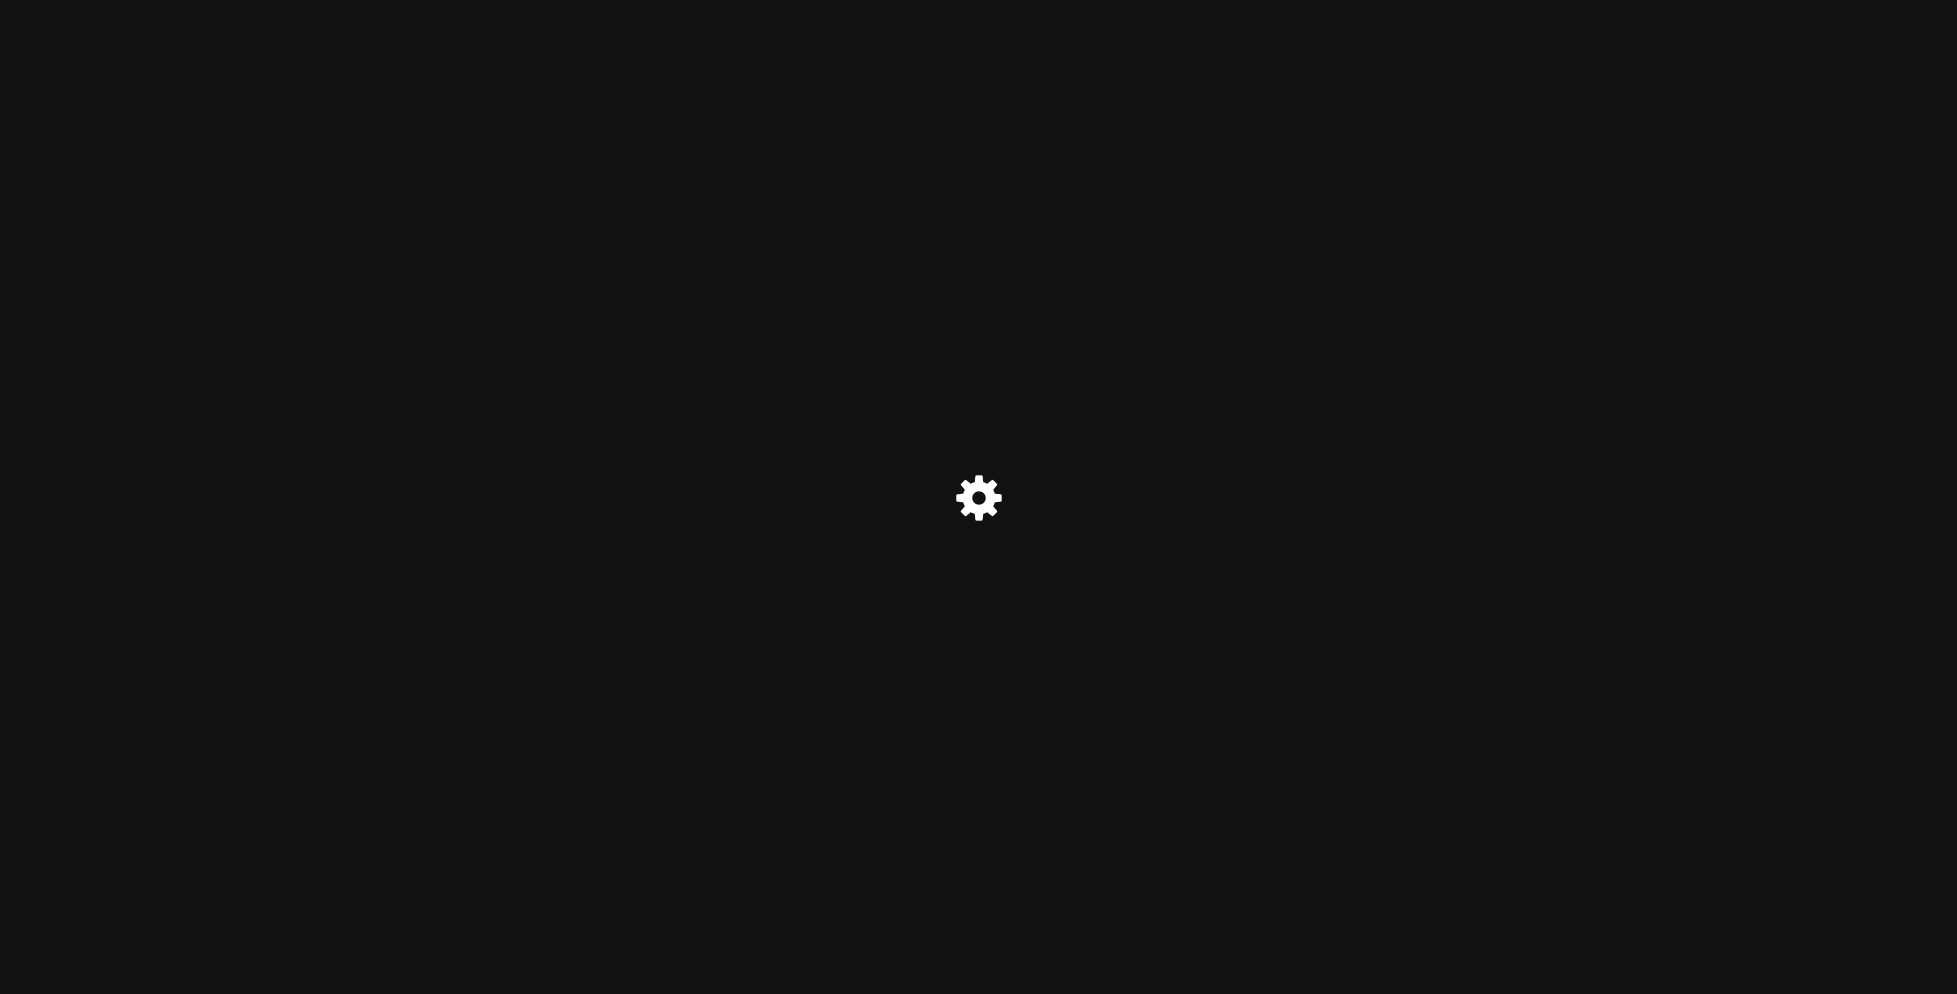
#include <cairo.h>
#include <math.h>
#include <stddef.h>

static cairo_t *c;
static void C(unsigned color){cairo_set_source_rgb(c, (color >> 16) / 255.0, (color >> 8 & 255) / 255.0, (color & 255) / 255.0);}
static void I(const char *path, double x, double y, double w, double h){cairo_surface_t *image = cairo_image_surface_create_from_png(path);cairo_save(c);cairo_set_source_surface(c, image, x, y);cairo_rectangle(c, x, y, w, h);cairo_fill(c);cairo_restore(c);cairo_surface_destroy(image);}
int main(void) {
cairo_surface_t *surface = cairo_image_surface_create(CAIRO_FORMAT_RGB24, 1957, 994);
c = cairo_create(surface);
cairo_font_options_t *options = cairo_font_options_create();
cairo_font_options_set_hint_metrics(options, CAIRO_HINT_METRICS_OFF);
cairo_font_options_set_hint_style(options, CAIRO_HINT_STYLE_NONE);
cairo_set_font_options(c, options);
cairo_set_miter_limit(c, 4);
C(0x111111);
cairo_paint(c);
I("1.png",956,475,46,46);
cairo_surface_write_to_png(surface, "o.png");
cairo_font_options_destroy(options);
cairo_destroy(c);
cairo_surface_destroy(surface);
return 0;
}
